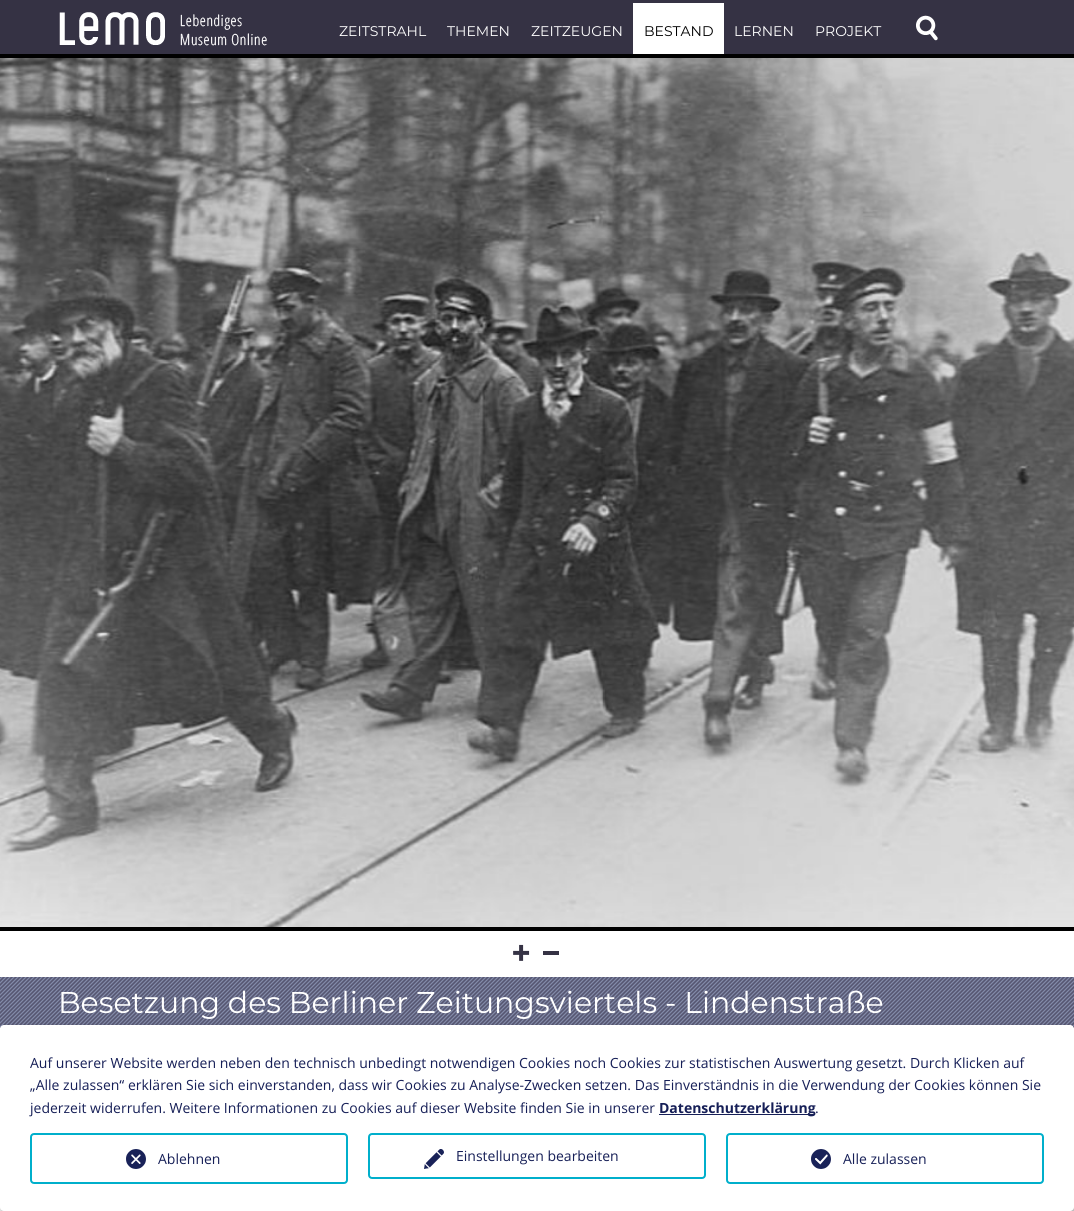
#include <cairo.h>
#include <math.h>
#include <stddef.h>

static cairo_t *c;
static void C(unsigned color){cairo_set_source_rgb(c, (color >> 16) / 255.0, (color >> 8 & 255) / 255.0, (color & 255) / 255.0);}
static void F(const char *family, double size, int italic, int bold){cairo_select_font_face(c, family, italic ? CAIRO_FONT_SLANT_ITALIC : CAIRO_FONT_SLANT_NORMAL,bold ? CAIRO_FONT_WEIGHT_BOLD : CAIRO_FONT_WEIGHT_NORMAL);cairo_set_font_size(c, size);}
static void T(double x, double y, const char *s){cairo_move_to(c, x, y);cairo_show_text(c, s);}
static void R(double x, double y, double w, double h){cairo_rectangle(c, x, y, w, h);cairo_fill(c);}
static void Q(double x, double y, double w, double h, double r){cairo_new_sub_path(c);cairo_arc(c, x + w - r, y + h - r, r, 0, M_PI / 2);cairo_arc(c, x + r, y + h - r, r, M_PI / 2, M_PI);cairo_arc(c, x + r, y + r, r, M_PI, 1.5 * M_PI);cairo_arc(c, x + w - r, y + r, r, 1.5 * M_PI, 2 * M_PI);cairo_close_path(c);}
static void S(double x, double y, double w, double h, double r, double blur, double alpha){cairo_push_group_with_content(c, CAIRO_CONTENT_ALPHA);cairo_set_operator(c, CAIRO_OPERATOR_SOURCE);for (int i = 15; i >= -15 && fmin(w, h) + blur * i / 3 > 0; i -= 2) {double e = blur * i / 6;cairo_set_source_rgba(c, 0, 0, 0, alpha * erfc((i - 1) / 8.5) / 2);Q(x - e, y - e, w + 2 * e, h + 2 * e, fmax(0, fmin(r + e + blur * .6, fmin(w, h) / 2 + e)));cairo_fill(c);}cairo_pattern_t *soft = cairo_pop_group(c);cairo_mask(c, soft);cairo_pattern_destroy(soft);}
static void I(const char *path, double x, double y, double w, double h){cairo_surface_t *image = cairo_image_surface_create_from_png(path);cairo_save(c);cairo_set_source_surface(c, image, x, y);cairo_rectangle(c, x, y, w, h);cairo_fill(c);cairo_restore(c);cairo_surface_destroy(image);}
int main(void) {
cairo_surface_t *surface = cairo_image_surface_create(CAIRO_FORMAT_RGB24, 1074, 1211);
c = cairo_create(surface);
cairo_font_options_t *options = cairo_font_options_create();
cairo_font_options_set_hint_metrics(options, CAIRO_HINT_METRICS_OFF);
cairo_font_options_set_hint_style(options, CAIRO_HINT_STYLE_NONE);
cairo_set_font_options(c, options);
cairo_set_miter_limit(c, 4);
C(0xffffff);
cairo_paint(c);
C(0x353244);
R(0,0,1074,54);
I("1.png",59,12,208,34);
F("Montserrat",14,0,0);
C(0xffffff);
T(339,36,"ZEITSTRAHL");
T(447,36,"THEMEN");
T(531,36,"ZEITZEUGEN");
R(633,3,91,51);
C(0x000000);
T(644,36,"BESTAND");
C(0xffffff);
T(734,36,"LERNEN");
T(815,36,"PROJEKT");
I("2.png",916,15,22,26);
C(0x000000);
R(0,54,1074,877);
I("3.png",0,58,1074,869);
I("4.png",513,944,17,17);
C(0x353244);
R(543,951,16,4);
I("5.png",0,977,1074,51);
F("Montserrat",30,0,0);
C(0xffffff);
T(58,1013,"Besetzung des Berliner Zeitungsviertels - Lindenstraße");
C(0x000000);
S(5,1030,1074,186,4,5,.19);
S(0,1029,1074,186,4,3,.2);
C(0xffffff);
Q(0,1025,1074,186,4);
cairo_fill(c);
F("Open Sans",14,0,0);
C(0x161f57);
T(30,1068,"Auf unserer Website werden neben den technisch unbedingt notwendigen Cookies noch Cookies zur statistischen Auswertung gesetzt. Durch Klicken auf");
T(30,1090,"„Alle zulassen“ erklären Sie sich einverstanden, dass wir Cookies zu Analyse-Zwecken setzen. Das Einverständnis in die Verwendung der Cookies können Sie");
T(30,1113,"jederzeit widerrufen. Weitere Informationen zu Cookies auf dieser Website finden Sie in unserer");
R(659,1114,156,1);
F("Open Sans",14,0,1);
T(659,1113,"Datenschutzerklärung");
F("Open Sans",14,0,0);
T(815,1113,".");
Q(369,1134,336,44,3);
C(0x00afcb);
cairo_stroke(c);
I("6.png",424,1149,20,20);
C(0x161f57);
T(456,1161,"Einstellungen bearbeiten");
Q(31,1134,316,49,3);
C(0x00afcb);
cairo_stroke(c);
I("7.png",126,1149,20,20);
C(0x161f57);
T(158,1164,"Ablehnen");
Q(727,1134,316,49,3);
C(0x00afcb);
cairo_stroke(c);
I("8.png",811,1149,20,20);
C(0x161f57);
T(843,1164,"Alle zulassen");
cairo_surface_write_to_png(surface, "o.png");
cairo_font_options_destroy(options);
cairo_destroy(c);
cairo_surface_destroy(surface);
return 0;
}
